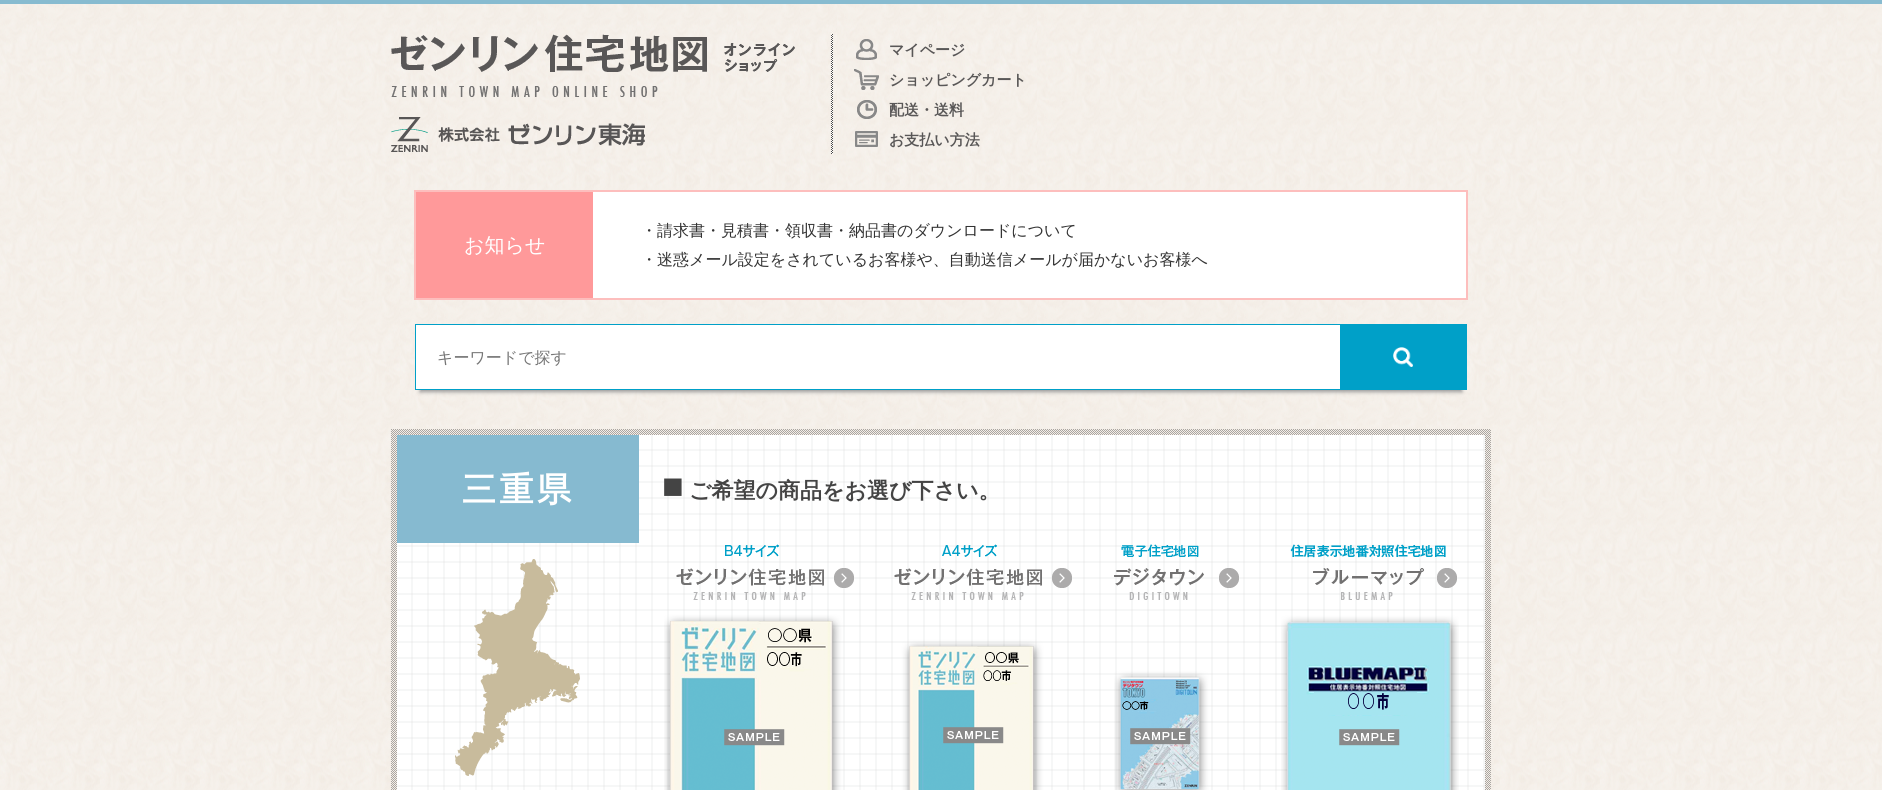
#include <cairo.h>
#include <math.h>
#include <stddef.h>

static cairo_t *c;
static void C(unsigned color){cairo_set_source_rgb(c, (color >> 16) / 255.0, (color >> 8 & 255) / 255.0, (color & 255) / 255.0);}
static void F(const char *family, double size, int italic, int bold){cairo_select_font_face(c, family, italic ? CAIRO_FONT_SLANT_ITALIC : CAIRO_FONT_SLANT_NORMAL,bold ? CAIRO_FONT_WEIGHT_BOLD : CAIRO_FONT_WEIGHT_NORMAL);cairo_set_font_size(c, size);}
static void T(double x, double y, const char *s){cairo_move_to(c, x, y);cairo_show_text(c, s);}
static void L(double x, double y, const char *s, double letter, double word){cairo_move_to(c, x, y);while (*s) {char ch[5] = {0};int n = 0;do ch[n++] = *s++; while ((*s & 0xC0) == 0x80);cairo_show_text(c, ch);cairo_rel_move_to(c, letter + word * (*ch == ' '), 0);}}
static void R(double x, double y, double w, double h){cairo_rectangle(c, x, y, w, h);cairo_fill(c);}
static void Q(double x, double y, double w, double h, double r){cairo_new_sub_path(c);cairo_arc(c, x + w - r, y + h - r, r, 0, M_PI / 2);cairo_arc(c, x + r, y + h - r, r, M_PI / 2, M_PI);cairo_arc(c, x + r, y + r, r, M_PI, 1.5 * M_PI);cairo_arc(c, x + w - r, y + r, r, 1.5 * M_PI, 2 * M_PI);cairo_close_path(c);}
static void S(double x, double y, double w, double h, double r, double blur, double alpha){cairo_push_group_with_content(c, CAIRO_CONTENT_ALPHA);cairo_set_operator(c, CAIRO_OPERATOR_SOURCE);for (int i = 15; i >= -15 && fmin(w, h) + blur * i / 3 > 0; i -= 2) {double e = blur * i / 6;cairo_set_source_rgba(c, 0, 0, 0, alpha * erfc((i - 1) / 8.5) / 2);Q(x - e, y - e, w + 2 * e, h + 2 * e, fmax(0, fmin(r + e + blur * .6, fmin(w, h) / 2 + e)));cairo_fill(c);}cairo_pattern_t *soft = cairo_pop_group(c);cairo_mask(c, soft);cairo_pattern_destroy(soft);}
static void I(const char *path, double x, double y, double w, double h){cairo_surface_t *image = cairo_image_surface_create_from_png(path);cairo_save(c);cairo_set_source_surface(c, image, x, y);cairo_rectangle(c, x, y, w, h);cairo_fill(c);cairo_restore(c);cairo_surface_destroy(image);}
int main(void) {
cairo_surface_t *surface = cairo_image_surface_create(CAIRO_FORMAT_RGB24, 1882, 790);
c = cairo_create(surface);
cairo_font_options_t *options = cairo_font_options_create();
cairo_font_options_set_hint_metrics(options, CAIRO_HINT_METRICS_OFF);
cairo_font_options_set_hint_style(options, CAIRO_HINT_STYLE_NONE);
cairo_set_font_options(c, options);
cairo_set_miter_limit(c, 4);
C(0xffffff);
cairo_paint(c);
I("1.png",0,4,1882,786);
C(0x87bbd0);
R(0,0,1882,4);
I("2.png",391,34,404,63);
I("3.png",391,117,254,35);
I("4.png",831,34,2,120);
I("5.png",856,39,21,21);
F("WenQuanYi Zen Hei",15,0,1);
C(0x595757);
T(889,55,"マイページ");
I("6.png",854,69,25,21);
T(889,85,"ショッピングカート");
I("7.png",857,100,20,19);
T(889,115,"配送・送料");
I("8.png",855,131,23,16);
T(889,145,"お支払い方法");
cairo_rectangle(c,415,191,1052,108);
C(0xfdbebd);
cairo_stroke(c);
C(0xff999a);
R(416,192,177,106);
F("WenQuanYi Zen Hei Medium",20,0,0);
C(0xffffff);
T(464,252,"お知らせ");
R(593,192,873,106);
F("WenQuanYi Zen Hei Medium",16,0,0);
C(0x333333);
T(641,236,"・請求書・見積書・領収書・納品書のダウンロードについて");
T(641,265,"・迷惑メール設定をされているお客様や、自動送信メールが届かないお客様へ");
C(0x999999);
S(420,336,1042,56,0,2,1);
cairo_rectangle(c,415.5,324.5,1051,65);
C(0x00a0c8);
cairo_set_line_width(c,1);
cairo_stroke(c);
C(0xffffff);
R(416,325,924,64);
C(0x757575);
T(437,363,"キーワードで探す");
C(0x00a0c8);
R(1340,325,126,64);
I("9.png",1393,347,20,20);
I("10.png",391,429,240,361);
I("13.png",631,429,860,361);
I("11.png",397,543,240,247);
I("14.png",637,435,848,355);
C(0x86bad0);
R(397,435,242,108);
F("WenQuanYi Zen Hei",34,0,1);
C(0xffffff);
L(462,501,"三重県",3.5,0);
I("12.png",455,559,125,217);
F("Liberation Sans",36,0,1);
C(0x444444);
T(662,498,"■");
F("WenQuanYi Zen Hei",22,0,1);
T(689,498,"ご希望の商品をお選び下さい。");
I("15.png",664,544,190,246);
I("16.png",894,544,178,246);
I("17.png",1114,544,125,246);
I("18.png",1281,544,178,246);
cairo_surface_write_to_png(surface, "o.png");
cairo_font_options_destroy(options);
cairo_destroy(c);
cairo_surface_destroy(surface);
return 0;
}
